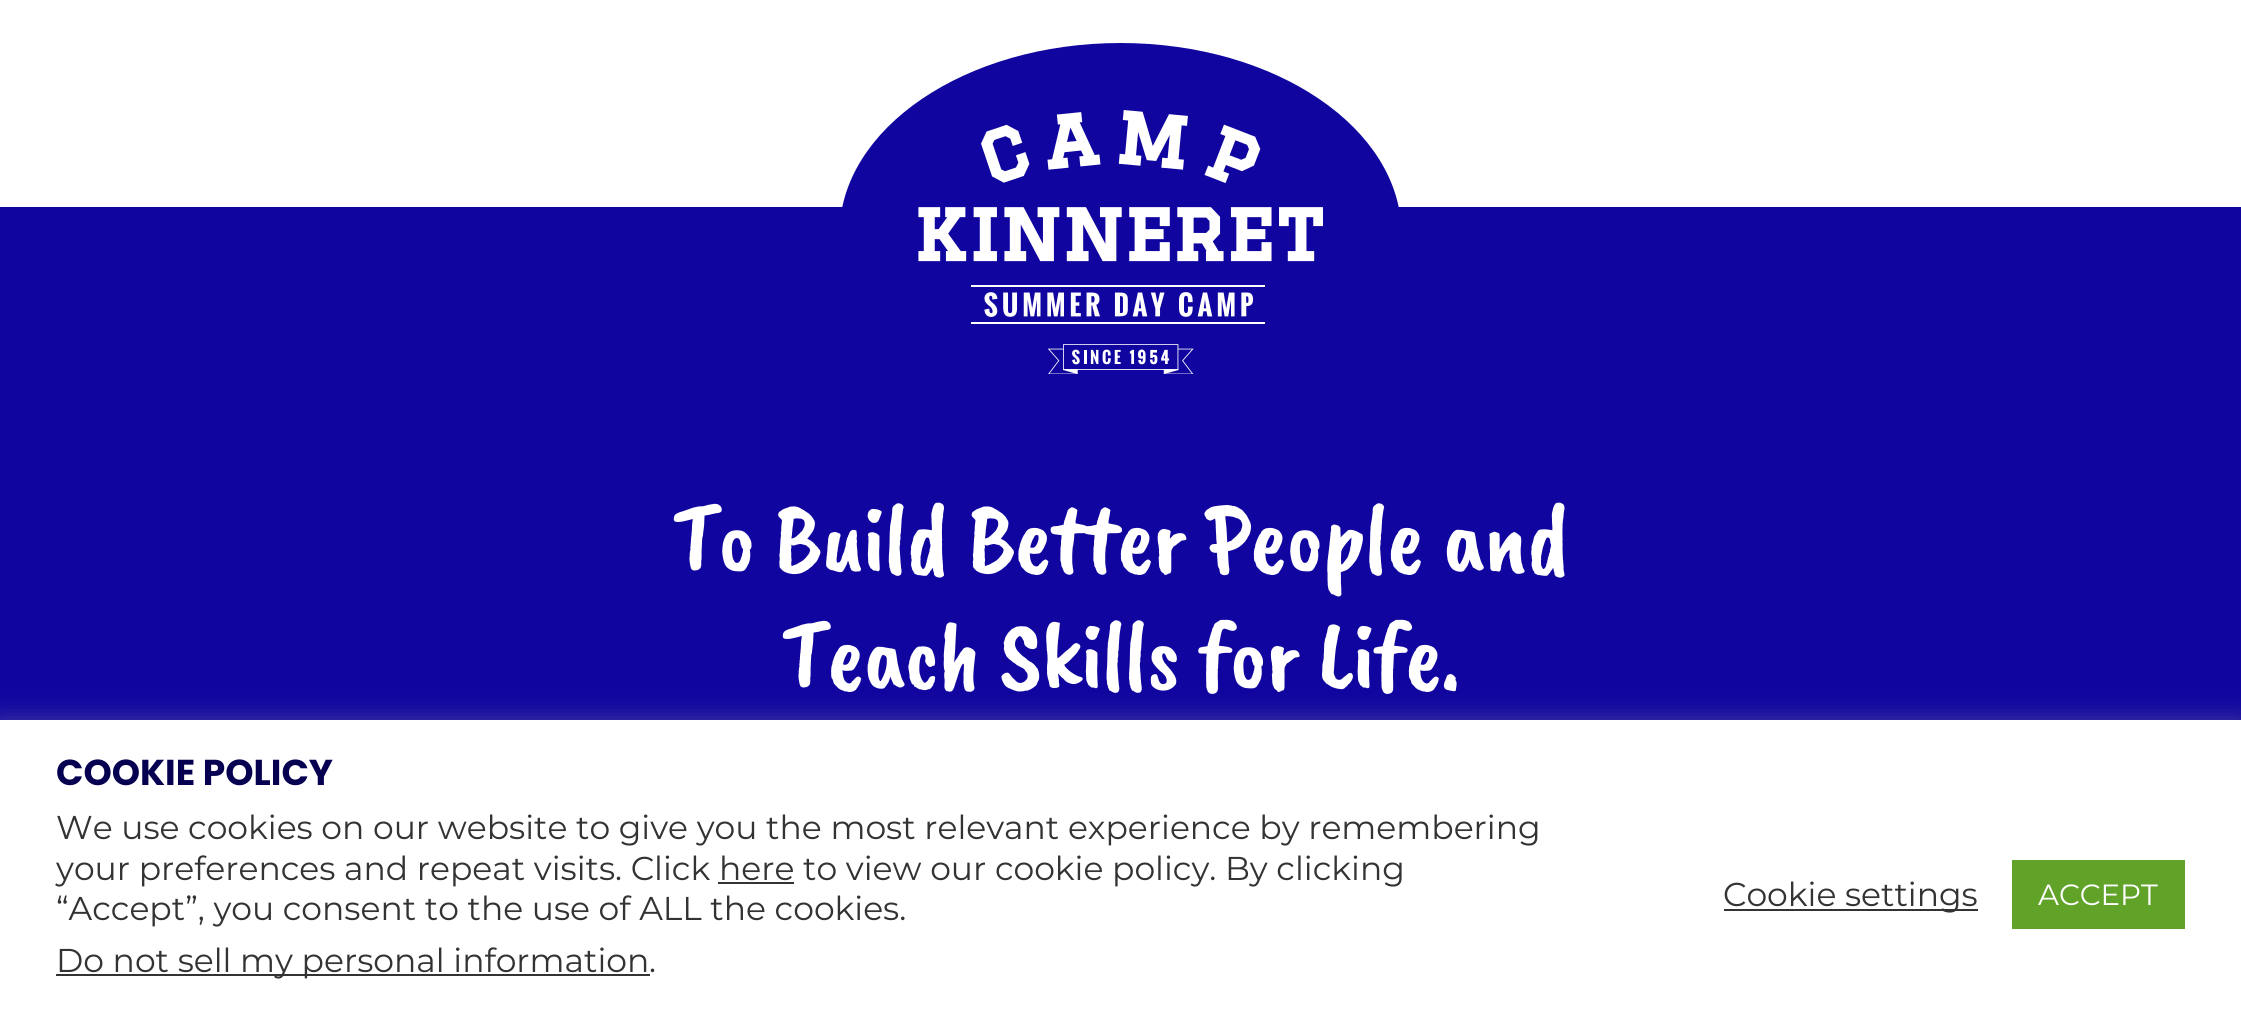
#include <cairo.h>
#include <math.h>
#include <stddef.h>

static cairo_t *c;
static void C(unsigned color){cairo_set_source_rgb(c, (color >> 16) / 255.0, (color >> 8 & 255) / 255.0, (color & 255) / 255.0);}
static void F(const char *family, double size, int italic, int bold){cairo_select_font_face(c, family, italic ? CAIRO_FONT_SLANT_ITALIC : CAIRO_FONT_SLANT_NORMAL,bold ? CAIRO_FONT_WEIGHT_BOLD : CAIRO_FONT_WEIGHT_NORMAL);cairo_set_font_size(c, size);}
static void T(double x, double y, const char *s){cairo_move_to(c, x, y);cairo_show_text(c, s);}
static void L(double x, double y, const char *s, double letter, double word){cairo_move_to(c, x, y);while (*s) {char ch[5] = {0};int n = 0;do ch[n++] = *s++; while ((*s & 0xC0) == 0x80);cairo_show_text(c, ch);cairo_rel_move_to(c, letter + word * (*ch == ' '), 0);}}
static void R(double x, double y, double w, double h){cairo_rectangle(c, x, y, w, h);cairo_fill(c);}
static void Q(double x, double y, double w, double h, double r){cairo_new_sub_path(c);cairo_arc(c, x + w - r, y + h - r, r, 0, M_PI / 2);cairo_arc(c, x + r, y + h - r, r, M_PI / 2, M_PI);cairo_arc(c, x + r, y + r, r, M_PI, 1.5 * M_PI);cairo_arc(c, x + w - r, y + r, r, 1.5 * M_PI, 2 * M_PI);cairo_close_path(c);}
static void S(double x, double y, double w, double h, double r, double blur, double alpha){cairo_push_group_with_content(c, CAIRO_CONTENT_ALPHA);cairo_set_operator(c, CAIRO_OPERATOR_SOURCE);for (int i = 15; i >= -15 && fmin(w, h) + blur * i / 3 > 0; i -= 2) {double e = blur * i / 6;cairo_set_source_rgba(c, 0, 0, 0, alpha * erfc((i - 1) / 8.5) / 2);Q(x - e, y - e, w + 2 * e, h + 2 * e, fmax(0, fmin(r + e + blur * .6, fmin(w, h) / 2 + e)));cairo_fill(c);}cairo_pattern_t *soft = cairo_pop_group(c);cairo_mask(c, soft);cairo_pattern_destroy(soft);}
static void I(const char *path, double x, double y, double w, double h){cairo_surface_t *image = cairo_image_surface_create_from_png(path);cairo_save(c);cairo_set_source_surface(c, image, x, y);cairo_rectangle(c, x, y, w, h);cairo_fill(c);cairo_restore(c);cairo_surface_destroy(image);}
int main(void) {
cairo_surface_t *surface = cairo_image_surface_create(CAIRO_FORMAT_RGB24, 2241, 1012);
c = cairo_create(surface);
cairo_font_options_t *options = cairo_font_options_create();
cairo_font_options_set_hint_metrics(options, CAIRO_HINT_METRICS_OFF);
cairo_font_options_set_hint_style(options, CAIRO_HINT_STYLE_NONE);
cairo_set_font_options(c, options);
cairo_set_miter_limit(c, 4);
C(0xffffff);
cairo_paint(c);
C(0x10069f);
R(0,207,2241,513);
cairo_new_path(c);
cairo_move_to(c,1120.5,43);
cairo_curve_to(c,1275.5,43,1401.5,128.5,1401.5,234);
cairo_curve_to(c,1401.5,339.5,1275.5,425,1120.5,425);
cairo_curve_to(c,965.5,425,839.5,339.5,839.5,234);
cairo_curve_to(c,839.5,128.5,965.5,43,1120.5,43);
cairo_close_path(c);
cairo_fill(c);
I("1.png",918,110,405,264);
F("Caveat Brush",99,0,0);
C(0xffffff);
L(672,571,"To Build Better People and",-1.35,0);
L(781,688,"Teach Skills for Life.",-1.35,0);
C(0xacabab);
S(0,718,2241,292,0,11,.3);
C(0xffffff);
R(0,720,2241,292);
F("Poppins",36,0,1);
C(0x050050);
T(56,785,"COOKIE POLICY");
F("Montserrat",33,0,0);
C(0x333333);
T(56,839,"We use cookies on our website to give you the most relevant experience by remembering");
T(56,880,"your preferences and repeat visits. Click");
R(718,882,76,2);
T(719,880,"here to view our cookie policy. By clicking");
T(56,920,"“Accept”, you consent to the use of ALL the cookies.");
R(56,974,594,2);
T(56,972,"Do not sell my personal information");
T(649,972,".");
R(1724,909,254,2);
T(1723,906,"Cookie settings");
C(0x61a229);
R(2012,860,173,69);
F("Montserrat",29.25,0,0);
C(0xffffff);
T(2038,905,"ACCEPT");
cairo_surface_write_to_png(surface, "o.png");
cairo_font_options_destroy(options);
cairo_destroy(c);
cairo_surface_destroy(surface);
return 0;
}
